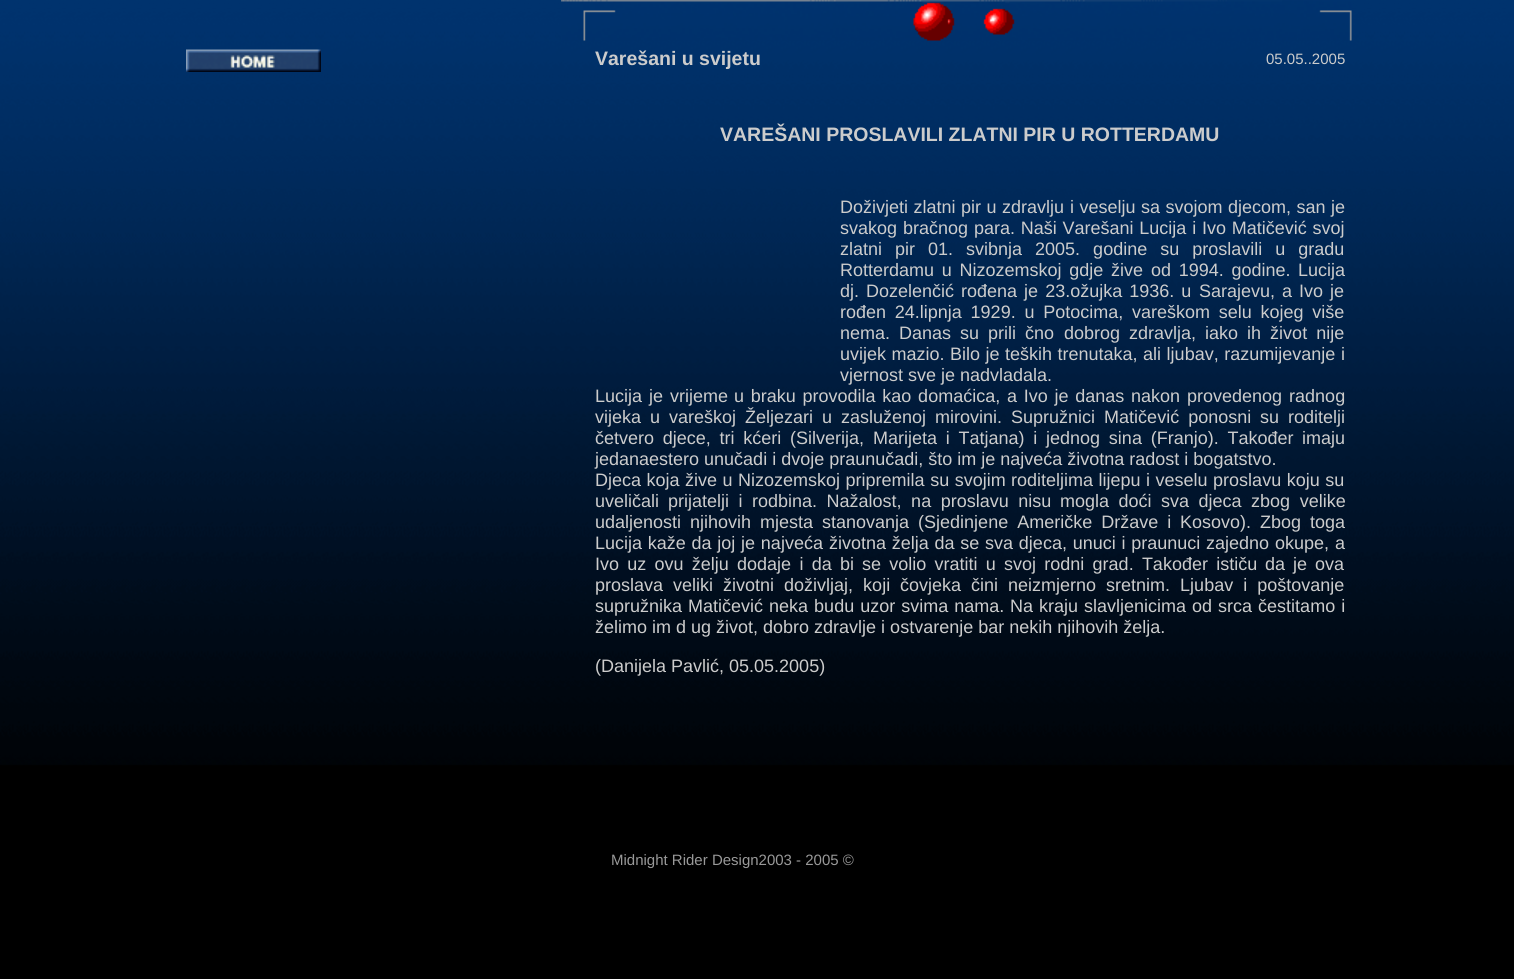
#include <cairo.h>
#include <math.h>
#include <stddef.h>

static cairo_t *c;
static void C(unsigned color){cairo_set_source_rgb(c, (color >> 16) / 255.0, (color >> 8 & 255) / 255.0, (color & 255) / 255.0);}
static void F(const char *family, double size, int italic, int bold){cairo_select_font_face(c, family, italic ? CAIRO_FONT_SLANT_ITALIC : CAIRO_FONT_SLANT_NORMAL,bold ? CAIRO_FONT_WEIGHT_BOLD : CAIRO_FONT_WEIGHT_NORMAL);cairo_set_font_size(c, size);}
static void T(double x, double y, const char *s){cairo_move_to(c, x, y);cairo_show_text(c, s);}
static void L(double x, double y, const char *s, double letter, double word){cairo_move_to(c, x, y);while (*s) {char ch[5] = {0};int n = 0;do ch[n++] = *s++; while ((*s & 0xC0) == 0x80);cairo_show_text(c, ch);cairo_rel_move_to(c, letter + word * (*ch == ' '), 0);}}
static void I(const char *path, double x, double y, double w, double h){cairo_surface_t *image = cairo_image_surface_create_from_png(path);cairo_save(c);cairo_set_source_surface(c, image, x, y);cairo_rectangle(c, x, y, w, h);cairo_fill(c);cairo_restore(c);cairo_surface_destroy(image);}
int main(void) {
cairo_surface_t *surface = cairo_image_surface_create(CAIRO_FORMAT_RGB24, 1514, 979);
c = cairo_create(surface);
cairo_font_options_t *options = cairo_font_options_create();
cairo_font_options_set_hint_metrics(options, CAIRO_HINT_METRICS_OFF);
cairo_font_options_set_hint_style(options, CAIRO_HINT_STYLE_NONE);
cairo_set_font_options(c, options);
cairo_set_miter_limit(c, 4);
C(0xffffff);
cairo_paint(c);
I("1.png",0,0,1514,979);
I("2.png",561,0,791,41);
I("3.png",913,2,102,39);
I("4.png",186,49,135,23);
F("Liberation Sans",19.5,0,1);
C(0xcccccc);
T(595,65,"Varešani u svijetu");
F("Liberation Sans",15,0,0);
T(1266,64,"05.05..2005");
F("Liberation Sans",19.5,0,1);
T(720,141,"VAREŠANI PROSLAVILI ZLATNI PIR U ROTTERDAMU");
F("Liberation Sans",18,0,0);
L(840,213,"Doživjeti zlatni pir u zdravlju",0,.5);
L(1070,213,"i veselju sa svojom djecom, san je",0,.5);
L(840,234,"svakog bračnog",0,1);
L(974,234,"para. Naši Varešani Lucija i Ivo Matičević svoj",0,.75);
T(840,255,"zlatni");
L(895,255,"pir 01. svibnja 2005. godine su proslavili u gradu",0,8);
L(840,276,"Rotterdamu u Nizozemskoj gdje žive od 1994. godine.",0,2.75);
T(1298,276,"Lucija");
L(840,297,"dj. Dozelenčić rođena je 23.ožujka 1936. u",0,2);
L(1199,297,"Sarajevu, a Ivo je",0,2);
L(840,318,"rođen 24.lipnja 1929. u Potocima,",0,3.75);
L(1132,318,"vareškom selu kojeg više",0,3.75);
L(840,339,"nema. Danas su prili čno",0,4);
L(1064,339,"dobrog zdravlja, iako ih život nije",0,4);
L(840,360,"uvijek mazio.",0,.5);
L(950,360,"Bilo je teških trenutaka, ali ljubav, razumijevanje",0,.5);
T(1341,360,"i");
T(840,381,"vjernost sve je nadvladala.");
L(595,402,"Lucija je vrijeme",0,2);
L(734,402,"u braku provodila kao domaćica, a Ivo je danas nakon",0,1.75);
L(1187,402,"provedenog radnog",0,2);
L(595,423,"vijeka u vareškoj Željezari u",0,4);
L(841,423,"zasluženoj mirovini. Supružnici Matičević ponosni",0,4);
L(1260,423,"su roditelji",0,4);
L(595,444,"četvero djece, tri kćeri (Silverija,",0,3.75);
L(873,444,"Marijeta i Tatjana) i jednog sina (Franjo). Također",0,3.75);
T(1302,444,"imaju");
T(595,465,"jedanaestero unučadi i dvoje praunučadi, što im je najveća životna radost i bogatstvo.");
L(595,486,"Djeca koja žive u Nizozemskoj pripremila su svojim",0,.5);
L(1011,486,"roditeljima lijepu i veselu proslavu koju su",0,.5);
T(595,507,"uveličali");
L(668,507,"prijatelji i rodbina. Nažalost, na proslavu nisu",0,4.5);
L(1060,507,"mogla doći sva djeca zbog velike",0,4.5);
L(595,528,"udaljenosti njihovih",0,4);
L(760,528,"mjesta stanovanja (Sjedinjene Američke Države i",0,4);
L(1180,528,"Kosovo). Zbog toga",0,4);
L(595,549,"Lucija kaže da joj je najveća",0,.75);
L(829,549,"životna želja da se sva djeca, unuci i praunuci",0,.75);
L(1206,549,"zajedno okupe, a",0,1);
L(595,570,"Ivo uz ovu želju dodaje i da bi",0,3.25);
L(862,570,"se volio vratiti u svoj rodni grad. Također ističu",0,3.25);
L(1265,570,"da je ova",0,3);
L(595,591,"proslava veliki životni doživljaj, koji",0,5);
L(900,591,"čovjeka čini neizmjerno sretnim. Ljubav i poštovanje",0,5);
L(595,612,"supružnika Matičević neka budu uzor svima nama.",0,1);
L(1010,612,"Na kraju slavljenicima od srca čestitamo i",0,1);
T(595,633,"želimo im d ug život, dobro zdravlje i ostvarenje bar nekih njihovih želja.");
T(595,672,"(Danijela Pavlić, 05.05.2005)");
F("Liberation Sans",15,0,0);
C(0x999999);
T(611,865,"Midnight Rider Design2003 - 2005 ©");
cairo_surface_write_to_png(surface, "o.png");
cairo_font_options_destroy(options);
cairo_destroy(c);
cairo_surface_destroy(surface);
return 0;
}
